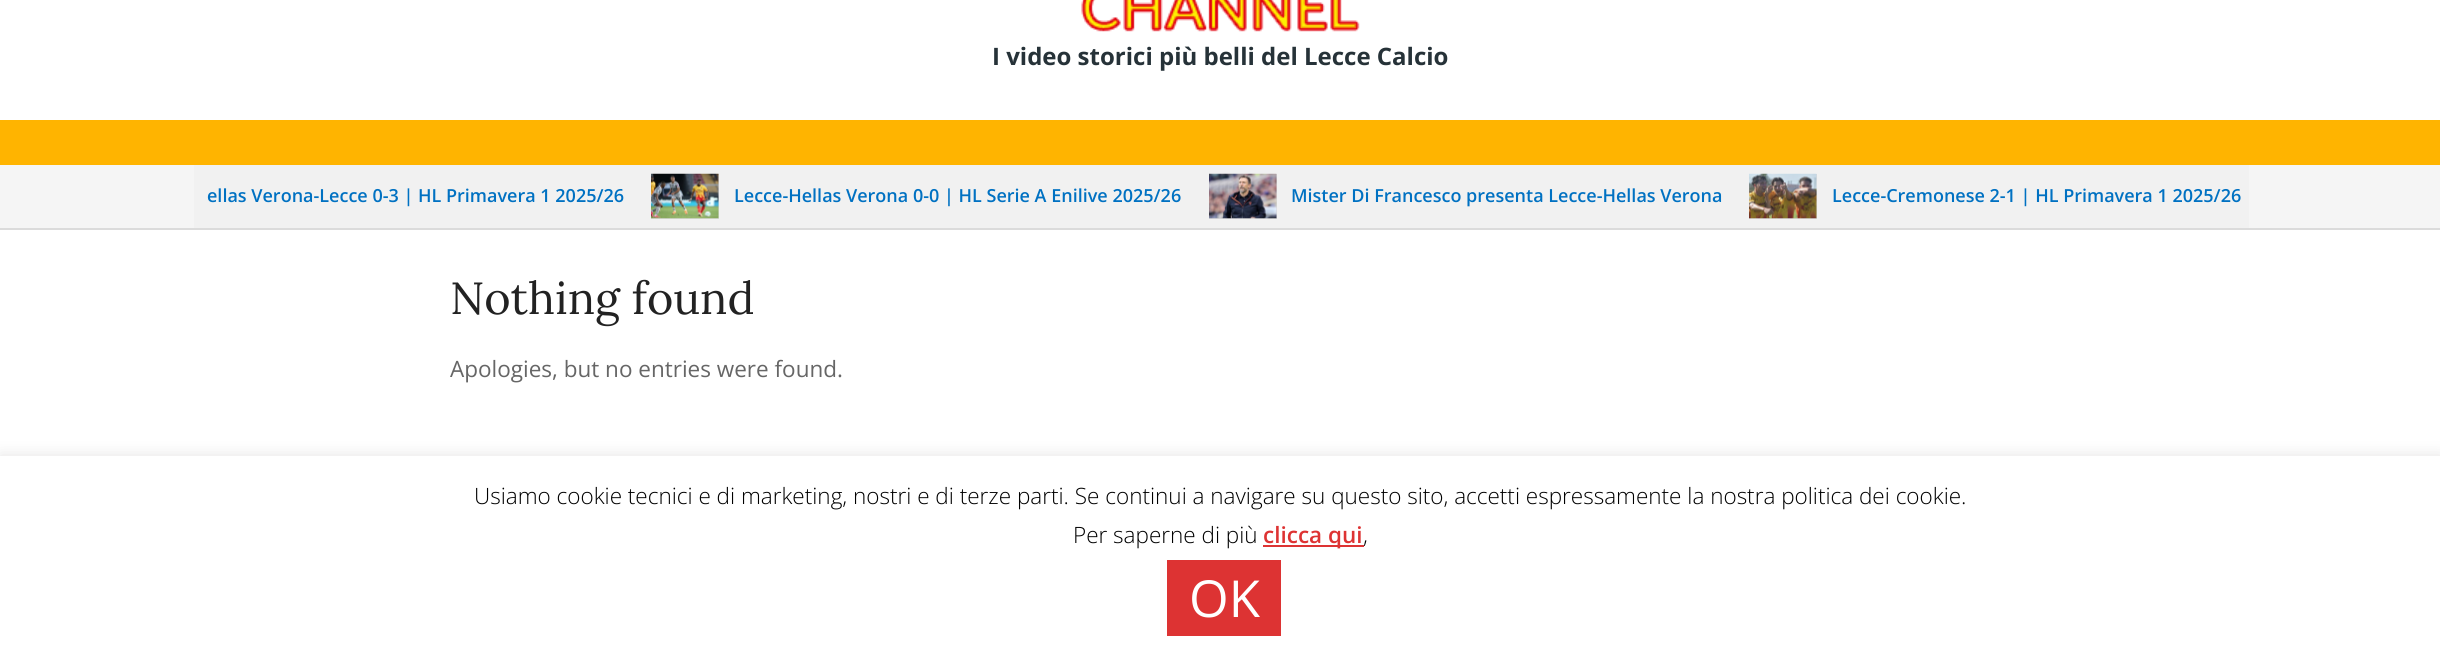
#include <cairo.h>
#include <math.h>
#include <stddef.h>

static cairo_t *c;
static void C(unsigned color){cairo_set_source_rgb(c, (color >> 16) / 255.0, (color >> 8 & 255) / 255.0, (color & 255) / 255.0);}
static void F(const char *family, double size, int italic, int bold){cairo_select_font_face(c, family, italic ? CAIRO_FONT_SLANT_ITALIC : CAIRO_FONT_SLANT_NORMAL,bold ? CAIRO_FONT_WEIGHT_BOLD : CAIRO_FONT_WEIGHT_NORMAL);cairo_set_font_size(c, size);}
static void T(double x, double y, const char *s){cairo_move_to(c, x, y);cairo_show_text(c, s);}
static void R(double x, double y, double w, double h){cairo_rectangle(c, x, y, w, h);cairo_fill(c);}
static void Q(double x, double y, double w, double h, double r){cairo_new_sub_path(c);cairo_arc(c, x + w - r, y + h - r, r, 0, M_PI / 2);cairo_arc(c, x + r, y + h - r, r, M_PI / 2, M_PI);cairo_arc(c, x + r, y + r, r, M_PI, 1.5 * M_PI);cairo_arc(c, x + w - r, y + r, r, 1.5 * M_PI, 2 * M_PI);cairo_close_path(c);}
static void S(double x, double y, double w, double h, double r, double blur, double alpha){cairo_push_group_with_content(c, CAIRO_CONTENT_ALPHA);cairo_set_operator(c, CAIRO_OPERATOR_SOURCE);for (int i = 15; i >= -15 && fmin(w, h) + blur * i / 3 > 0; i -= 2) {double e = blur * i / 6;cairo_set_source_rgba(c, 0, 0, 0, alpha * erfc((i - 1) / 8.5) / 2);Q(x - e, y - e, w + 2 * e, h + 2 * e, fmax(0, fmin(r + e + blur * .6, fmin(w, h) / 2 + e)));cairo_fill(c);}cairo_pattern_t *soft = cairo_pop_group(c);cairo_mask(c, soft);cairo_pattern_destroy(soft);}
static void I(const char *path, double x, double y, double w, double h){cairo_surface_t *image = cairo_image_surface_create_from_png(path);cairo_save(c);cairo_set_source_surface(c, image, x, y);cairo_rectangle(c, x, y, w, h);cairo_fill(c);cairo_restore(c);cairo_surface_destroy(image);}
int main(void) {
cairo_surface_t *surface = cairo_image_surface_create(CAIRO_FORMAT_RGB24, 2440, 653);
c = cairo_create(surface);
cairo_font_options_t *options = cairo_font_options_create();
cairo_font_options_set_hint_metrics(options, CAIRO_HINT_METRICS_OFF);
cairo_font_options_set_hint_style(options, CAIRO_HINT_STYLE_NONE);
cairo_set_font_options(c, options);
cairo_set_miter_limit(c, 4);
C(0xffffff);
cairo_paint(c);
C(0xffb400);
R(0,120,2440,45);
I("1.png",1081,0,279,32);
F("Open Sans",24,0,1);
C(0x263238);
T(992,65,"I video storici più belli del Lecce Calcio");
C(0xdbdbdb);
R(0,228,2440,2);
C(0xf5f5f5);
R(0,165,2440,63);
C(0xf1f1f1);
R(194,165,2055,63);
F("Open Sans SemiBold",18,0,0);
C(0x0071c2);
T(207,202,"ellas Verona-Lecce 0-3 | HL Primavera 1 2025/26");
C(0xd9d9d9);
R(651,174,68,45);
I("2.png",651,173,68,46);
C(0x0071c2);
T(734,202,"Lecce-Hellas Verona 0-0 | HL Serie A Enilive 2025/26");
C(0xd9d9d9);
R(1209,174,68,45);
I("3.png",1209,173,68,46);
C(0x0071c2);
T(1291,202,"Mister Di Francesco presenta Lecce-Hellas Verona");
C(0xd9d9d9);
R(1749,174,68,45);
I("4.png",1749,173,68,46);
C(0x0071c2);
T(1832,202,"Lecce-Cremonese 2-1 | HL Primavera 1 2025/26");
F("Lora",45,0,0);
C(0x222222);
T(450,314,"Nothing found");
F("Open Sans",22.5,0,0);
C(0x666666);
T(450,377,"Apologies, but no entries were found.");
C(0xacabab);
S(0,455,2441,198,0,7.5,.3);
C(0xffffff);
R(0,456,2440,197);
F("Open Sans Light",22.5,0,0);
C(0x000000);
T(474,504,"Usiamo cookie tecnici e di marketing, nostri e di terze parti. Se continui a navigare su questo sito, accetti espressamente la nostra politica dei cookie.");
T(1073,543,"Per saperne di più");
C(0xdd3333);
R(1263,545,101,2);
F("Open Sans SemiBold",22.5,0,0);
T(1263,543,"clicca qui");
F("Open Sans Light",22.5,0,0);
C(0x000000);
T(1363,543,",");
C(0xdd3333);
R(1167,560,114,76);
F("Open Sans",51,0,0);
C(0xffffff);
T(1189,617,"OK");
cairo_surface_write_to_png(surface, "o.png");
cairo_font_options_destroy(options);
cairo_destroy(c);
cairo_surface_destroy(surface);
return 0;
}
